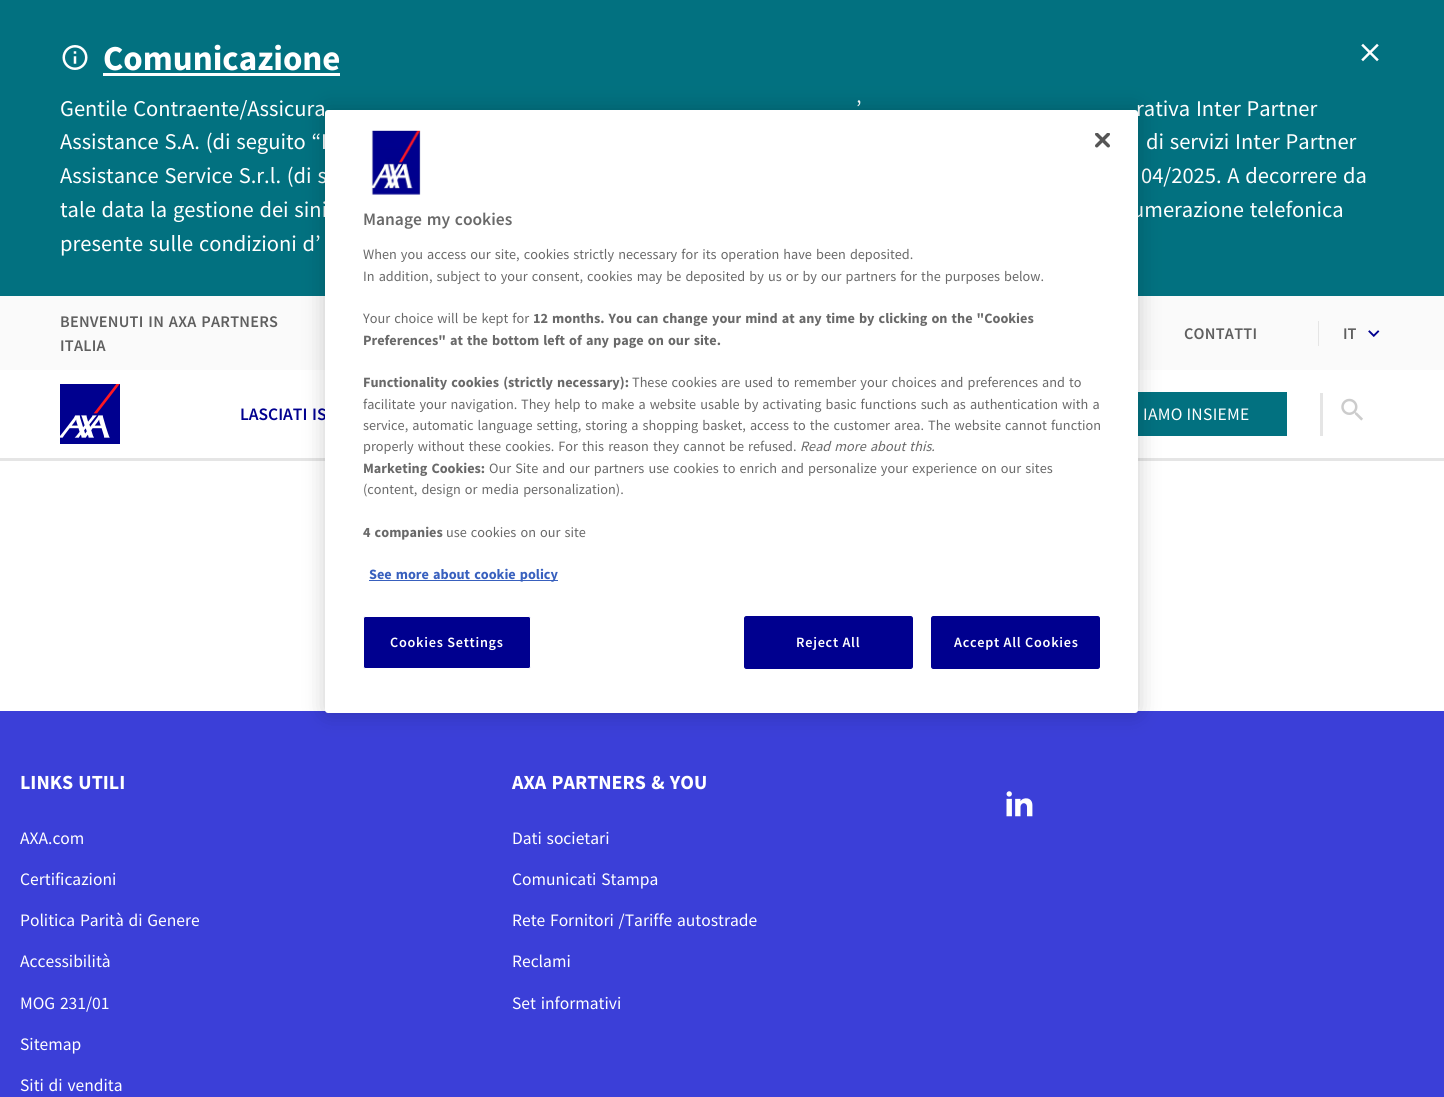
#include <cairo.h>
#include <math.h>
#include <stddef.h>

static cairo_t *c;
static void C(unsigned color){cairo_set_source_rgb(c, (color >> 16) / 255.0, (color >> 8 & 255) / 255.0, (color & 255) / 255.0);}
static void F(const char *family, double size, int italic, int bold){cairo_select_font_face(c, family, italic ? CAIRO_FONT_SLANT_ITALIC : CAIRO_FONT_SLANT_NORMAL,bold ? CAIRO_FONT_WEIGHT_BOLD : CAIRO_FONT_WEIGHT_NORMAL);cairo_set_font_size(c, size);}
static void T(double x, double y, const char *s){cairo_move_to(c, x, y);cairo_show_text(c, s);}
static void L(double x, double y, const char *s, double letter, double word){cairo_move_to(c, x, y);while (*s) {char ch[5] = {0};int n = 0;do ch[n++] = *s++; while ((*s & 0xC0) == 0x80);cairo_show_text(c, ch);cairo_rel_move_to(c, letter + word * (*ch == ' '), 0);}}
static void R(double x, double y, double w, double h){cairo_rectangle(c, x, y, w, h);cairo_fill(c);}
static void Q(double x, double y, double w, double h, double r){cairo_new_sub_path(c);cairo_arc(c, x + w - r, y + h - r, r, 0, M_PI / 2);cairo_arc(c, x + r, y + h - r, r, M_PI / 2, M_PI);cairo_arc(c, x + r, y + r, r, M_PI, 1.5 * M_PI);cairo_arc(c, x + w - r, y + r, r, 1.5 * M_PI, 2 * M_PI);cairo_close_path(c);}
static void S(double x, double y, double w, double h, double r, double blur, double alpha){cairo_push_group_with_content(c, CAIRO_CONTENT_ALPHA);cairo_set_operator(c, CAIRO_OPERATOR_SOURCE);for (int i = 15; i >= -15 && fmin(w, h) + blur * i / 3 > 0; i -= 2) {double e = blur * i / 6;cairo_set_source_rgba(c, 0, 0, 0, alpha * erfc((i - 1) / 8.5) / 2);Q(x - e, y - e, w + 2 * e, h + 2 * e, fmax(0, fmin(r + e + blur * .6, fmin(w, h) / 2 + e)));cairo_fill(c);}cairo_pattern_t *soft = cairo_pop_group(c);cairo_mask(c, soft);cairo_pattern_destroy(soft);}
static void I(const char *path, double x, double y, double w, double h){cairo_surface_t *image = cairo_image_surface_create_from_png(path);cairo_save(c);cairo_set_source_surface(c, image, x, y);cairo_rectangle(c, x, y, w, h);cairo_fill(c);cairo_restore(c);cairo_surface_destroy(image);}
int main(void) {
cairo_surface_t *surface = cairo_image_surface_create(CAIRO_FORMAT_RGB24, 1444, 1097);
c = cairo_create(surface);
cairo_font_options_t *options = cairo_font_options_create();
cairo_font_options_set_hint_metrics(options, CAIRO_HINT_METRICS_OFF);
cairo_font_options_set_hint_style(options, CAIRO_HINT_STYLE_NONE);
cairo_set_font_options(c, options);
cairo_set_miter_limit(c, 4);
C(0xffffff);
cairo_paint(c);
C(0x027180);
R(0,0,1444,296);
I("1.png",62,45,26,25);
F("Source Sans Pro",35,0,1);
C(0xffffff);
T(103,70,"Comunicazione");
R(103,73,237,3);
I("2.png",1361,43,18,19);
F("Source Sans Pro",22.5,0,0);
L(60,116,"Gentile Contraente/Assicura",0,1.25);
L(856,116,"’",0,1.25);
L(1136,116,"rativa Inter Partner",0,1.25);
L(60,149,"Assistance S.A. (di seguito “I",0,1.25);
L(1146,149,"di servizi Inter Partner",0,1.25);
L(60,183,"Assistance Service S.r.l. (di s",0,1.25);
L(1141,183,"04/2025. A decorrere da",0,1.25);
L(60,217,"tale data la gestione dei sini",0,1.25);
L(1132,217,"umerazione telefonica",0,1.25);
L(60,251,"presente sulle condizioni d’",0,1.25);
C(0xfafafa);
R(0,296,1444,74);
F("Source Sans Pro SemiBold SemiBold",16.25,0,0);
C(0x5f5f5f);
L(60,327,"BENVENUTI IN AXA PARTNERS",.25,1.25);
L(60,351,"ITALIA",.25,0);
L(1184,339,"CONTATTI",.25,0);
C(0xe5e5e5);
R(1318,321,1,25);
C(0x5f5f5f);
T(1343,339,"IT");
I("3.png",1368,330,12,7);
C(0xe5e5e5);
R(0,458,1444,3);
I("4.png",60,384,60,60);
F("Source Sans Pro SemiBold SemiBold",17.5,0,0);
C(0x00008f);
L(240,420,"LASCIATI IS",0,1.25);
C(0x027180);
R(1138,392,149,44);
F("Source Sans Pro",17.5,0,0);
C(0xffffff);
L(1143,420,"IAMO INSIEME",.3,0);
C(0xe5e5e5);
R(1320,393,3,43);
I("5.png",1341,398,22,23);
C(0x3b3fd8);
R(0,711,1444,386);
F("Source Sans Pro",20,0,1);
C(0xffffff);
L(20,789,"LINKS UTILI",0,1.25);
F("Source Sans Pro",17.5,0,0);
T(20,844,"AXA.com");
T(20,885,"Certificazioni");
L(20,926,"Politica Parità di Genere",0,1.25);
T(20,967,"Accessibilità");
L(20,1009,"MOG 231/01",0,1.25);
T(20,1050,"Sitemap");
L(20,1091,"Siti di vendita",0,1.25);
F("Source Sans Pro",20,0,1);
L(512,789,"AXA PARTNERS & YOU",0,1.25);
F("Source Sans Pro",17.5,0,0);
L(512,844,"Dati societari",0,1.25);
L(512,885,"Comunicati Stampa",0,1.25);
L(512,926,"Rete Fornitori /Tariffe autostrade",0,1.25);
T(512,967,"Reclami");
L(512,1009,"Set informativi",0,1.25);
I("6.png",1006,791,27,26);
C(0x000000);
S(325,110,813,603,3,11,.2);
C(0xffffff);
Q(325,110,813,603,3);
cairo_fill(c);
I("7.png",1095,133,15,15);
I("8.png",371,130,50,65);
F("Source Sans Pro SemiBold SemiBold",17.5,0,0);
C(0x696969);
L(363,225,"Manage my cookies",0,1.25);
F("Source Sans Pro",14.23,0,0);
L(363,259,"When you access our site, cookies strictly necessary for its operation have been deposited.",0,1.25);
L(363,281,"In addition, subject to your consent, cookies may be deposited by us or by our partners for the purposes below.",0,1.25);
L(363,323,"Your choice will be kept for",0,1.25);
F("Source Sans Pro",14.23,0,1);
L(533,323,"12 months. You can change your mind at any time by clicking on the \"Cookies",0,1.25);
L(363,345,"Preferences\" at the bottom left of any page on our site.",0,1.25);
L(363,387,"Functionality cookies (strictly necessary):",0,1.25);
F("Source Sans Pro",14.23,0,0);
L(632,387,"These cookies are used to remember your choices and preferences and to",0,1.25);
L(363,409,"facilitate your navigation.",0,1.25);
L(521,409,"They help to make a website usable by activating basic functions such as authentication with a",0,1.25);
L(363,430,"service, automatic language setting, storing a shopping basket, access to the customer area. The website cannot function",0,1.25);
L(363,451,"properly without these cookies. For this reason they cannot be refused.",0,1.25);
F("Source Sans Pro",14.23,1,0);
L(800,451,"Read more about this.",0,1.25);
F("Source Sans Pro",14.23,0,1);
L(363,473,"Marketing Cookies:",0,1.25);
F("Source Sans Pro",14.23,0,0);
L(489,473,"Our Site and our partners use cookies to enrich and personalize your experience on our sites",0,1.25);
L(363,494,"(content, design or media personalization).",0,1.25);
F("Source Sans Pro",14.23,0,1);
L(363,537,"4 companies",0,1.25);
F("Source Sans Pro",14.23,0,0);
L(446,537,"use cookies on our site",0,1.25);
C(0x3860be);
R(369,580,189,1);
F("Source Sans Pro",14.23,0,1);
L(369,579,"See more about cookie policy",0,1.25);
C(0x00008f);
Q(363.5,616.5,167,52,2);
cairo_fill_preserve(c);
C(0xffffff);
cairo_set_line_width(c,1);
cairo_stroke(c);
F("Source Sans Pro SemiBold SemiBold",14.23,0,0);
L(390,647,"Cookies Settings",.75,0);
C(0x00008f);
Q(744.5,616.5,168,52,2);
cairo_fill_preserve(c);
cairo_stroke(c);
C(0xffffff);
L(796,647,"Reject All",.75,0);
C(0x00008f);
Q(931.5,616.5,168,52,2);
cairo_fill_preserve(c);
cairo_stroke(c);
C(0xffffff);
L(954,647,"Accept All Cookies",.75,0);
cairo_surface_write_to_png(surface, "o.png");
cairo_font_options_destroy(options);
cairo_destroy(c);
cairo_surface_destroy(surface);
return 0;
}
